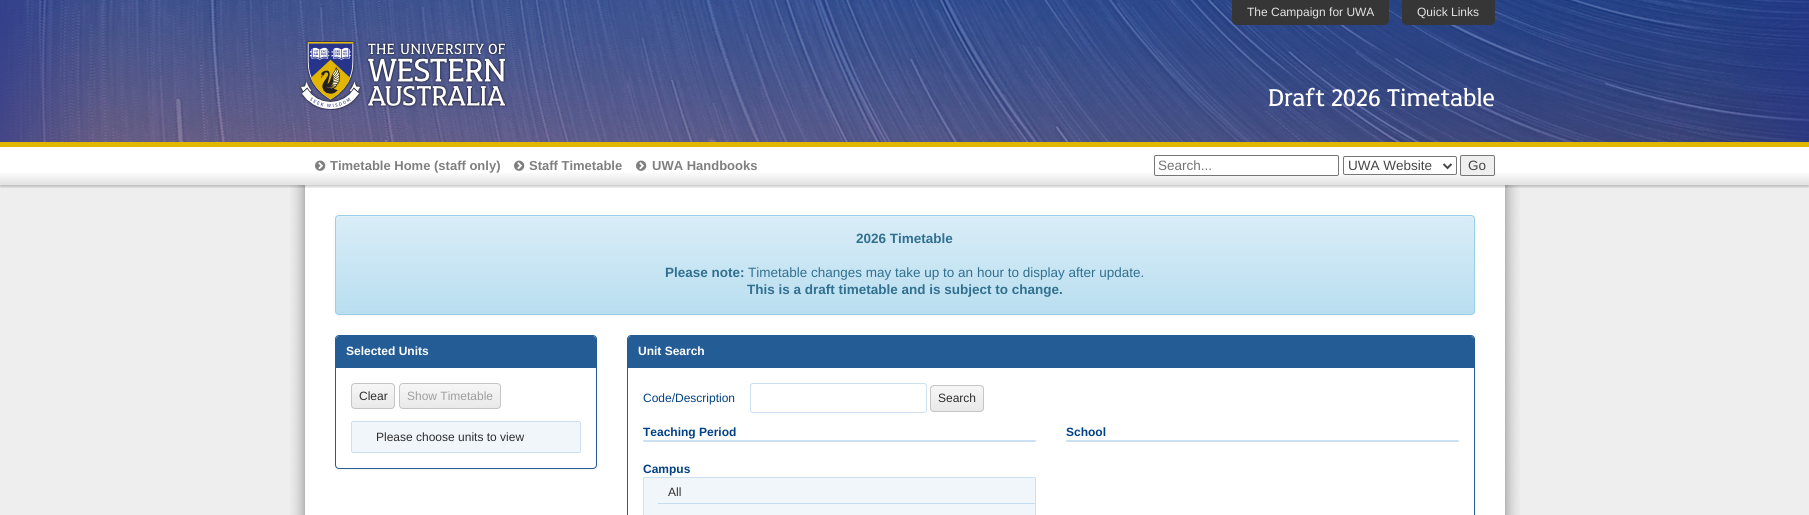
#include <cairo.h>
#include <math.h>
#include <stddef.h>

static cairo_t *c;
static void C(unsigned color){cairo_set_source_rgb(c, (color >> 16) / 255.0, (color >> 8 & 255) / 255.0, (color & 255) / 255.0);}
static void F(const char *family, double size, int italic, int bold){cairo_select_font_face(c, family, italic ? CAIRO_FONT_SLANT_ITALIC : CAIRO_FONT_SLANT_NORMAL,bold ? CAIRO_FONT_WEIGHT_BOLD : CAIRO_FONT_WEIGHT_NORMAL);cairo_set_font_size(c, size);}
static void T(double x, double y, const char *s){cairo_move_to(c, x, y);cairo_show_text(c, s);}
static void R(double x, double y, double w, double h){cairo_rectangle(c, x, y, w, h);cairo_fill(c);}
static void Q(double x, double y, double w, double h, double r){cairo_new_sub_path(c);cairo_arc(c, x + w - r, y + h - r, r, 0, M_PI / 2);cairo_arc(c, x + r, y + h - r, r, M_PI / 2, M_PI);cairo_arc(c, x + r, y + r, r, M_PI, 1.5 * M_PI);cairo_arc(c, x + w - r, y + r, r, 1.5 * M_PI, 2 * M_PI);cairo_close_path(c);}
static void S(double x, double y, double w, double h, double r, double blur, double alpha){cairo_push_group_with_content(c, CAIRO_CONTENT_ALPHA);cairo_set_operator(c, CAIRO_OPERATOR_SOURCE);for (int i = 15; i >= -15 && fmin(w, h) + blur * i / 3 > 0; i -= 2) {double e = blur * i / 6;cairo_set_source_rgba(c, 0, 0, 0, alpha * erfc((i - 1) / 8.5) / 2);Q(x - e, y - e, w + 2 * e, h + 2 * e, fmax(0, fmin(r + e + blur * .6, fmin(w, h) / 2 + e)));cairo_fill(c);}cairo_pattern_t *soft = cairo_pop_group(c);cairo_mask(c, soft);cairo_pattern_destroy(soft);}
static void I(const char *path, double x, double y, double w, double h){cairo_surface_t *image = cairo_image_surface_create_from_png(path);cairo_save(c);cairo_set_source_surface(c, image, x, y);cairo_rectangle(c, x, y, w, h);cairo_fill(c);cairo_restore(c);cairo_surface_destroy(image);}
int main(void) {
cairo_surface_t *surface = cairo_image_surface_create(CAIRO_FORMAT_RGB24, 1809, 515);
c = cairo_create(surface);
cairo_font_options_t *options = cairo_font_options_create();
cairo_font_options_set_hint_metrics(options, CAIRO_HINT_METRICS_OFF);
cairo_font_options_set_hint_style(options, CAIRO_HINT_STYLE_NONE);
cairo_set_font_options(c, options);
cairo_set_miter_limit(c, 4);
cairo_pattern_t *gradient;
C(0xffffff);
cairo_paint(c);
I("1.png",0,0,1809,142);
C(0xe0b600);
R(0,142,1809,5);
C(0x363636);
cairo_new_path(c);
cairo_move_to(c,1232,0);
cairo_line_to(c,1389,0);
cairo_line_to(c,1389,20);
cairo_curve_to(c,1389,23,1387,25,1384,25);
cairo_line_to(c,1237,25);
cairo_curve_to(c,1234,25,1232,23,1232,20);
cairo_close_path(c);
cairo_fill(c);
F("Liberation Sans",12,0,0);
C(0xe2e2e2);
T(1247,16,"The Campaign for UWA");
C(0x363636);
cairo_new_path(c);
cairo_move_to(c,1402,0);
cairo_line_to(c,1495,0);
cairo_line_to(c,1495,20);
cairo_curve_to(c,1495,23,1493,25,1490,25);
cairo_line_to(c,1407,25);
cairo_curve_to(c,1404,25,1402,23,1402,20);
cairo_close_path(c);
cairo_fill(c);
C(0xe2e2e2);
T(1417,16,"Quick Links");
I("2.png",299,41,208,69);
F("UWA",26,0,0);
C(0xffffff);
T(1268,106,"Draft 2026 Timetable");
C(0xeeeeee);
R(0,185,1809,330);
I("5.png",290,185,1230,330);
cairo_save(c);
cairo_rectangle(c,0,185,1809,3);
cairo_clip(c);
C(0x000000);
S(0,149,1809,38,0,1,.2);
cairo_restore(c);
I("3.png",0,173,1809,12);
I("4.png",315,160,11,11);
F("Liberation Sans",13,0,1);
C(0x7f7f7f);
T(330,170,"Timetable Home (staff only)");
I("4.png",514,160,11,11);
T(529,170,"Staff Timetable");
I("4.png",636,160,11,11);
T(652,170,"UWA Handbooks");
C(0xffffff);
Q(1154.5,155.5,184,20,1.5);
cairo_fill_preserve(c);
C(0x767676);
cairo_set_line_width(c,1);
cairo_stroke(c);
F("Liberation Sans",13.5,0,0);
C(0x757575);
T(1158,170,"Search...");
C(0xffffff);
Q(1343.5,156.5,113,18,1.5);
cairo_fill_preserve(c);
C(0x767676);
cairo_stroke(c);
cairo_new_path(c);
cairo_move_to(c,1443.5,164);
cairo_line_to(c,1447.5,168);
cairo_line_to(c,1451.5,164);
C(0x464646);
cairo_set_line_width(c,2);
cairo_stroke(c);
T(1348,170,"UWA Website");
C(0xefefef);
Q(1460.5,155.5,34,20,1.5);
cairo_fill_preserve(c);
C(0x767676);
cairo_set_line_width(c,1);
cairo_stroke(c);
C(0x464646);
T(1468,170,"Go");
C(0x000000);
S(335,216,1140,100,4,1,.05);
cairo_save(c);
Q(335,215,1140,100,4);
cairo_clip(c);
gradient = cairo_pattern_create_linear(905,216,905,314);
cairo_pattern_add_color_stop_rgba(gradient,0,0.851,0.929,0.969,1);
cairo_pattern_add_color_stop_rgba(gradient,1,0.725,0.871,0.941,1);
cairo_set_source(c,gradient);
cairo_pattern_destroy(gradient);
R(335,216,1140,98);
cairo_restore(c);
C(0xe3f2f9);
cairo_new_path(c);
cairo_move_to(c,339,217);
cairo_line_to(c,1471,217);
cairo_curve_to(c,1473,217,1474,218,1474,220);
cairo_line_to(c,1474,219);
cairo_curve_to(c,1474,217,1473,216,1471,216);
cairo_line_to(c,339,216);
cairo_curve_to(c,337,216,336,217,336,219);
cairo_line_to(c,336,220);
cairo_curve_to(c,336,218,337,217,339,217);
cairo_close_path(c);
cairo_fill(c);
Q(335.5,215.5,1139,99,3.5);
C(0x9acfea);
cairo_stroke(c);
F("Liberation Sans",13.5,0,1);
C(0x31708f);
T(856,243,"2026 Timetable");
T(665,277,"Please note:");
F("Liberation Sans",13.5,0,0);
T(748,277,"Timetable changes may take up to an hour to display after update.");
F("Liberation Sans",13.5,0,1);
T(747,294,"This is a draft timetable and is subject to change.");
C(0x000000);
S(335,336,262,134,4,1,.05);
C(0xffffff);
Q(335.5,335.5,261,133,3.5);
cairo_fill_preserve(c);
C(0x245c96);
cairo_stroke(c);
cairo_new_path(c);
cairo_move_to(c,339,336);
cairo_line_to(c,593,336);
cairo_curve_to(c,594.5,336,596,337.5,596,339);
cairo_line_to(c,596,368);
cairo_line_to(c,336,368);
cairo_line_to(c,336,339);
cairo_curve_to(c,336,337.5,337.5,336,339,336);
cairo_close_path(c);
cairo_fill(c);
F("Liberation Sans",12,0,1);
C(0xffffff);
T(346,355,"Selected Units");
C(0xe9e9e9);
Q(351,383,44,26,4);
cairo_fill(c);
cairo_save(c);
Q(351,383,44,26,4);
cairo_clip(c);
gradient = cairo_pattern_create_linear(373,384,373,408);
cairo_pattern_add_color_stop_rgba(gradient,0,1,1,1,.6);
cairo_pattern_add_color_stop_rgba(gradient,1,1,1,1,0);
cairo_set_source(c,gradient);
cairo_pattern_destroy(gradient);
R(351,384,44,23);
cairo_restore(c);
Q(351.5,383.5,43,25,3.5);
C(0xc5c5c5);
cairo_stroke(c);
F("Liberation Sans",12,0,0);
C(0x2e2e2e);
T(359,400,"Clear");
C(0xe9e9e9);
Q(399,383,102,26,4);
cairo_fill(c);
cairo_save(c);
Q(399,383,102,26,4);
cairo_clip(c);
gradient = cairo_pattern_create_linear(450,384,450,408);
cairo_pattern_add_color_stop_rgba(gradient,0,1,1,1,.6);
cairo_pattern_add_color_stop_rgba(gradient,1,1,1,1,0);
cairo_set_source(c,gradient);
cairo_pattern_destroy(gradient);
R(399,384,102,23);
cairo_restore(c);
Q(399.5,383.5,101,25,3.5);
C(0xc5c5c5);
cairo_stroke(c);
C(0x9f9f9f);
T(407,400,"Show Timetable");
C(0xf1f6fa);
Q(351.5,421.5,229,31,1.5);
cairo_fill_preserve(c);
C(0xcce0f1);
cairo_stroke(c);
C(0x2e2e2e);
T(376,441,"Please choose units to view");
Q(627.5,335.5,847,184,3.5);
C(0x245c96);
cairo_stroke(c);
cairo_new_path(c);
cairo_move_to(c,631,336);
cairo_line_to(c,1471,336);
cairo_curve_to(c,1472.5,336,1474,337.5,1474,339);
cairo_line_to(c,1474,368);
cairo_line_to(c,628,368);
cairo_line_to(c,628,339);
cairo_curve_to(c,628,337.5,629.5,336,631,336);
cairo_close_path(c);
cairo_fill(c);
F("Liberation Sans",12,0,1);
C(0xffffff);
T(638,355,"Unit Search");
F("Liberation Sans",12,0,0);
C(0x004185);
T(643,402,"Code/Description");
Q(750.5,383.5,176,29,2.5);
C(0xcce0f1);
cairo_stroke(c);
C(0xe9e9e9);
Q(930,385,54,27,4);
cairo_fill(c);
cairo_save(c);
Q(930,385,54,27,4);
cairo_clip(c);
gradient = cairo_pattern_create_linear(957,386,957,411);
cairo_pattern_add_color_stop_rgba(gradient,0,1,1,1,.6);
cairo_pattern_add_color_stop_rgba(gradient,1,1,1,1,0);
cairo_set_source(c,gradient);
cairo_pattern_destroy(gradient);
R(930,386,54,24);
cairo_restore(c);
Q(930.5,385.5,53,26,3.5);
C(0xc5c5c5);
cairo_stroke(c);
C(0x2e2e2e);
T(938,402,"Search");
F("Liberation Sans",12,0,1);
C(0x004185);
T(643,436,"Teaching Period");
C(0xcce0f1);
Q(643,440,393,2,1);
cairo_fill(c);
C(0x004185);
T(643,473,"Campus");
C(0xf1f6fa);
Q(643.5,477.5,392,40,1.5);
cairo_fill_preserve(c);
C(0xcce0f1);
cairo_stroke(c);
C(0xc5dcef);
R(658,503,377,1);
F("Liberation Sans",12,0,0);
C(0x2e2e2e);
T(668,496,"All");
F("Liberation Sans",12,0,1);
C(0x004185);
T(1066,436,"School");
C(0xcce0f1);
Q(1066,440,393,2,1);
cairo_fill(c);
cairo_surface_write_to_png(surface, "o.png");
cairo_font_options_destroy(options);
cairo_destroy(c);
cairo_surface_destroy(surface);
return 0;
}
